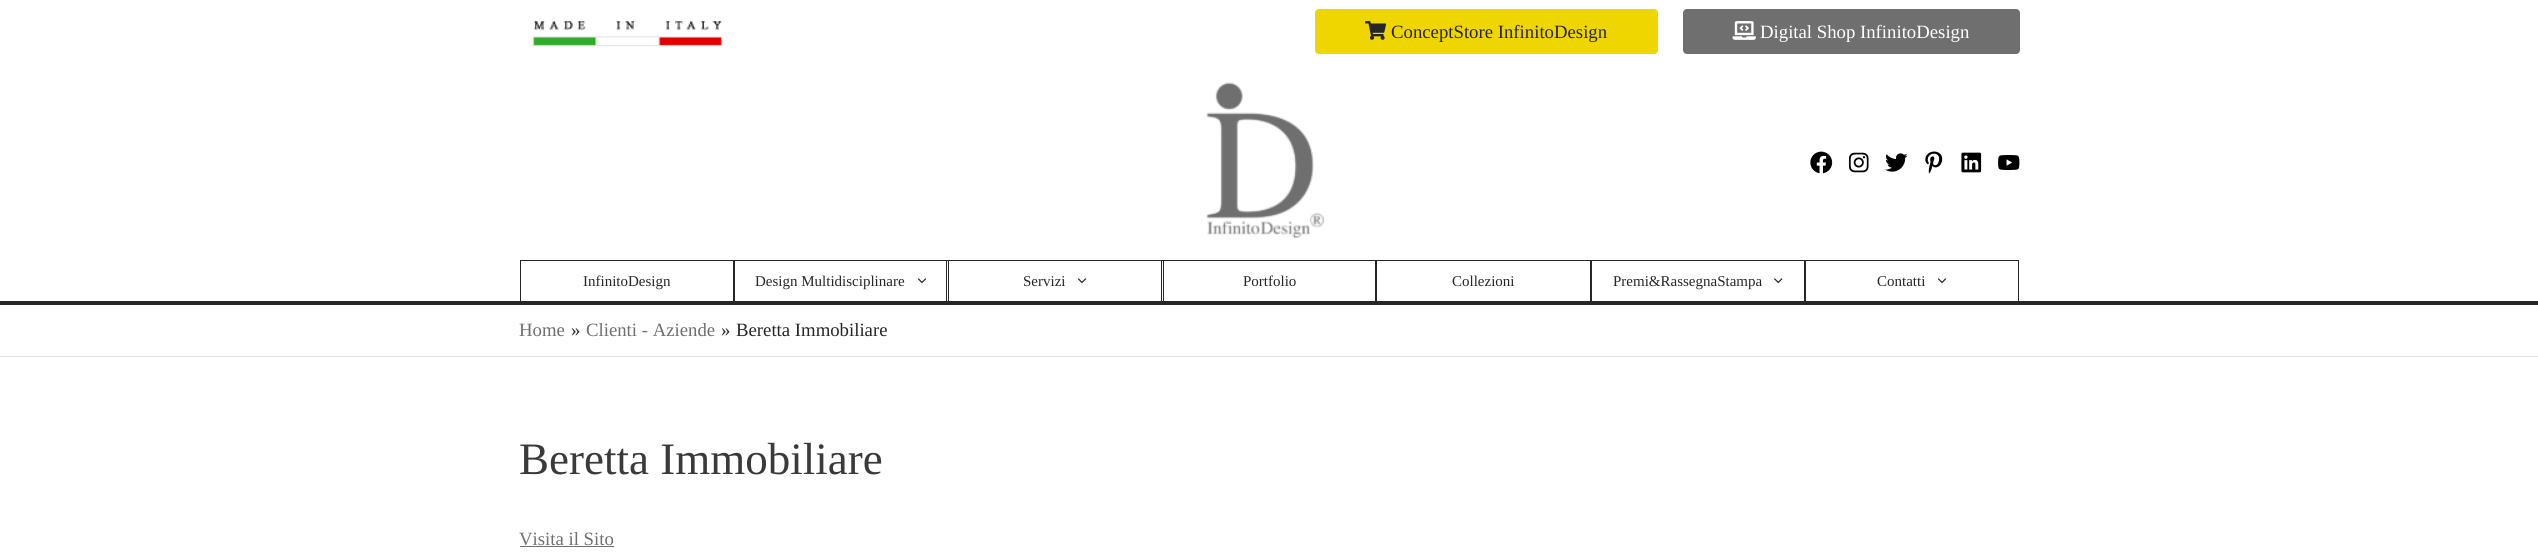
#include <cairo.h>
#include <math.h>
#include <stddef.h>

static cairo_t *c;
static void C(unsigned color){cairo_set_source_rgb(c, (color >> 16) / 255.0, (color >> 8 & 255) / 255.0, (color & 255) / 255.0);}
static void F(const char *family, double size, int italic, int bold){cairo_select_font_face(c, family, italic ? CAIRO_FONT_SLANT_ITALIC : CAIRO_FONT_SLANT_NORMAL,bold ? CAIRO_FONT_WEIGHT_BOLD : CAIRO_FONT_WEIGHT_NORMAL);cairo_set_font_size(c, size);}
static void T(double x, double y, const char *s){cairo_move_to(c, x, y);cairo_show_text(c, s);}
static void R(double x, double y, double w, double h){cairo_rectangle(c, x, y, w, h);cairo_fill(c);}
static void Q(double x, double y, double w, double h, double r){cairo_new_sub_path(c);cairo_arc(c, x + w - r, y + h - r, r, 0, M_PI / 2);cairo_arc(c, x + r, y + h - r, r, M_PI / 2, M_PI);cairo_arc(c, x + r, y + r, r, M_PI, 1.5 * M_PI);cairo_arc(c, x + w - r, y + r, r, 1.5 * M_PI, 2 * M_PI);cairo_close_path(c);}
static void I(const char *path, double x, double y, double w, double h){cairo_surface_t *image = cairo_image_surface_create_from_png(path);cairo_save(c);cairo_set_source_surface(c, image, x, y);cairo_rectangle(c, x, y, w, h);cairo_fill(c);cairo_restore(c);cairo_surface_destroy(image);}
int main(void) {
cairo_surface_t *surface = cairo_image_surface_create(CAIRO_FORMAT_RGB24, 2538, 558);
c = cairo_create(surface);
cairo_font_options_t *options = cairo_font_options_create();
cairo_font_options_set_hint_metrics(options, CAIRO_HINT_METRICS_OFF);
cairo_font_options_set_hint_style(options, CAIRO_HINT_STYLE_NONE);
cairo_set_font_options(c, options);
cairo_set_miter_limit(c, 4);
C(0xffffff);
cairo_paint(c);
I("1.png",532,21,191,26);
C(0xefd600);
Q(1315,9,343,45,4);
cairo_fill(c);
I("2.png",1365,21,22,19);
F("Liberation Serif",18.75,0,0);
C(0x262626);
T(1391,38,"ConceptStore InfinitoDesign");
C(0x6f6f6f);
Q(1683,9,337,45,4);
cairo_fill(c);
I("3.png",1732,21,24,19);
C(0xffffff);
T(1760,38,"Digital Shop InfinitoDesign");
I("4.png",1206,82,119,157);
I("5.png",1810,151,23,23);
I("6.png",1848,152,21,21);
I("7.png",1885,153,23,19);
I("8.png",1925,151,18,23);
I("9.png",1961,152,21,21);
I("10.png",1998,155,22,15);
C(0x262626);
R(0,301,2538,4);
R(520,260,1499,1);
R(520,260,1,41);
F("Liberation Serif",15,0,0);
T(583,286,"InfinitoDesign");
R(946,260,1,41);
R(733,260,2,41);
T(755,286,"Design Multidisciplinare");
I("11.png",918,278,8,6);
R(1161,260,1,41);
R(948,260,1,41);
T(1023,286,"Servizi");
I("12.png",1078,278,9,6);
R(1375,260,2,41);
R(1163,260,1,41);
T(1243,286,"Portfolio");
R(1590,260,2,41);
T(1452,286,"Collezioni");
R(1804,260,2,41);
T(1613,286,"Premi&RassegnaStampa");
I("13.png",1774,278,9,6);
R(2018,260,1,41);
T(1877,286,"Contatti");
I("12.png",1938,278,9,6);
C(0xdddddd);
R(0,356,2538,1);
F("Liberation Serif",18.75,0,0);
C(0x6f6f6f);
T(519,336,"Home");
C(0x262626);
T(571,336,"»");
C(0x6f6f6f);
T(586,336,"Clienti - Aziende");
C(0x262626);
T(721,336,"»");
T(736,336,"Beretta Immobiliare");
F("Liberation Serif",45,0,0);
C(0x3a3a3a);
T(519,474,"Beretta Immobiliare");
F("Liberation Serif",18.75,0,0);
C(0x6f6f6f);
T(519,545,"Visita il Sito");
R(520,546,94,1);
cairo_surface_write_to_png(surface, "o.png");
cairo_font_options_destroy(options);
cairo_destroy(c);
cairo_surface_destroy(surface);
return 0;
}
